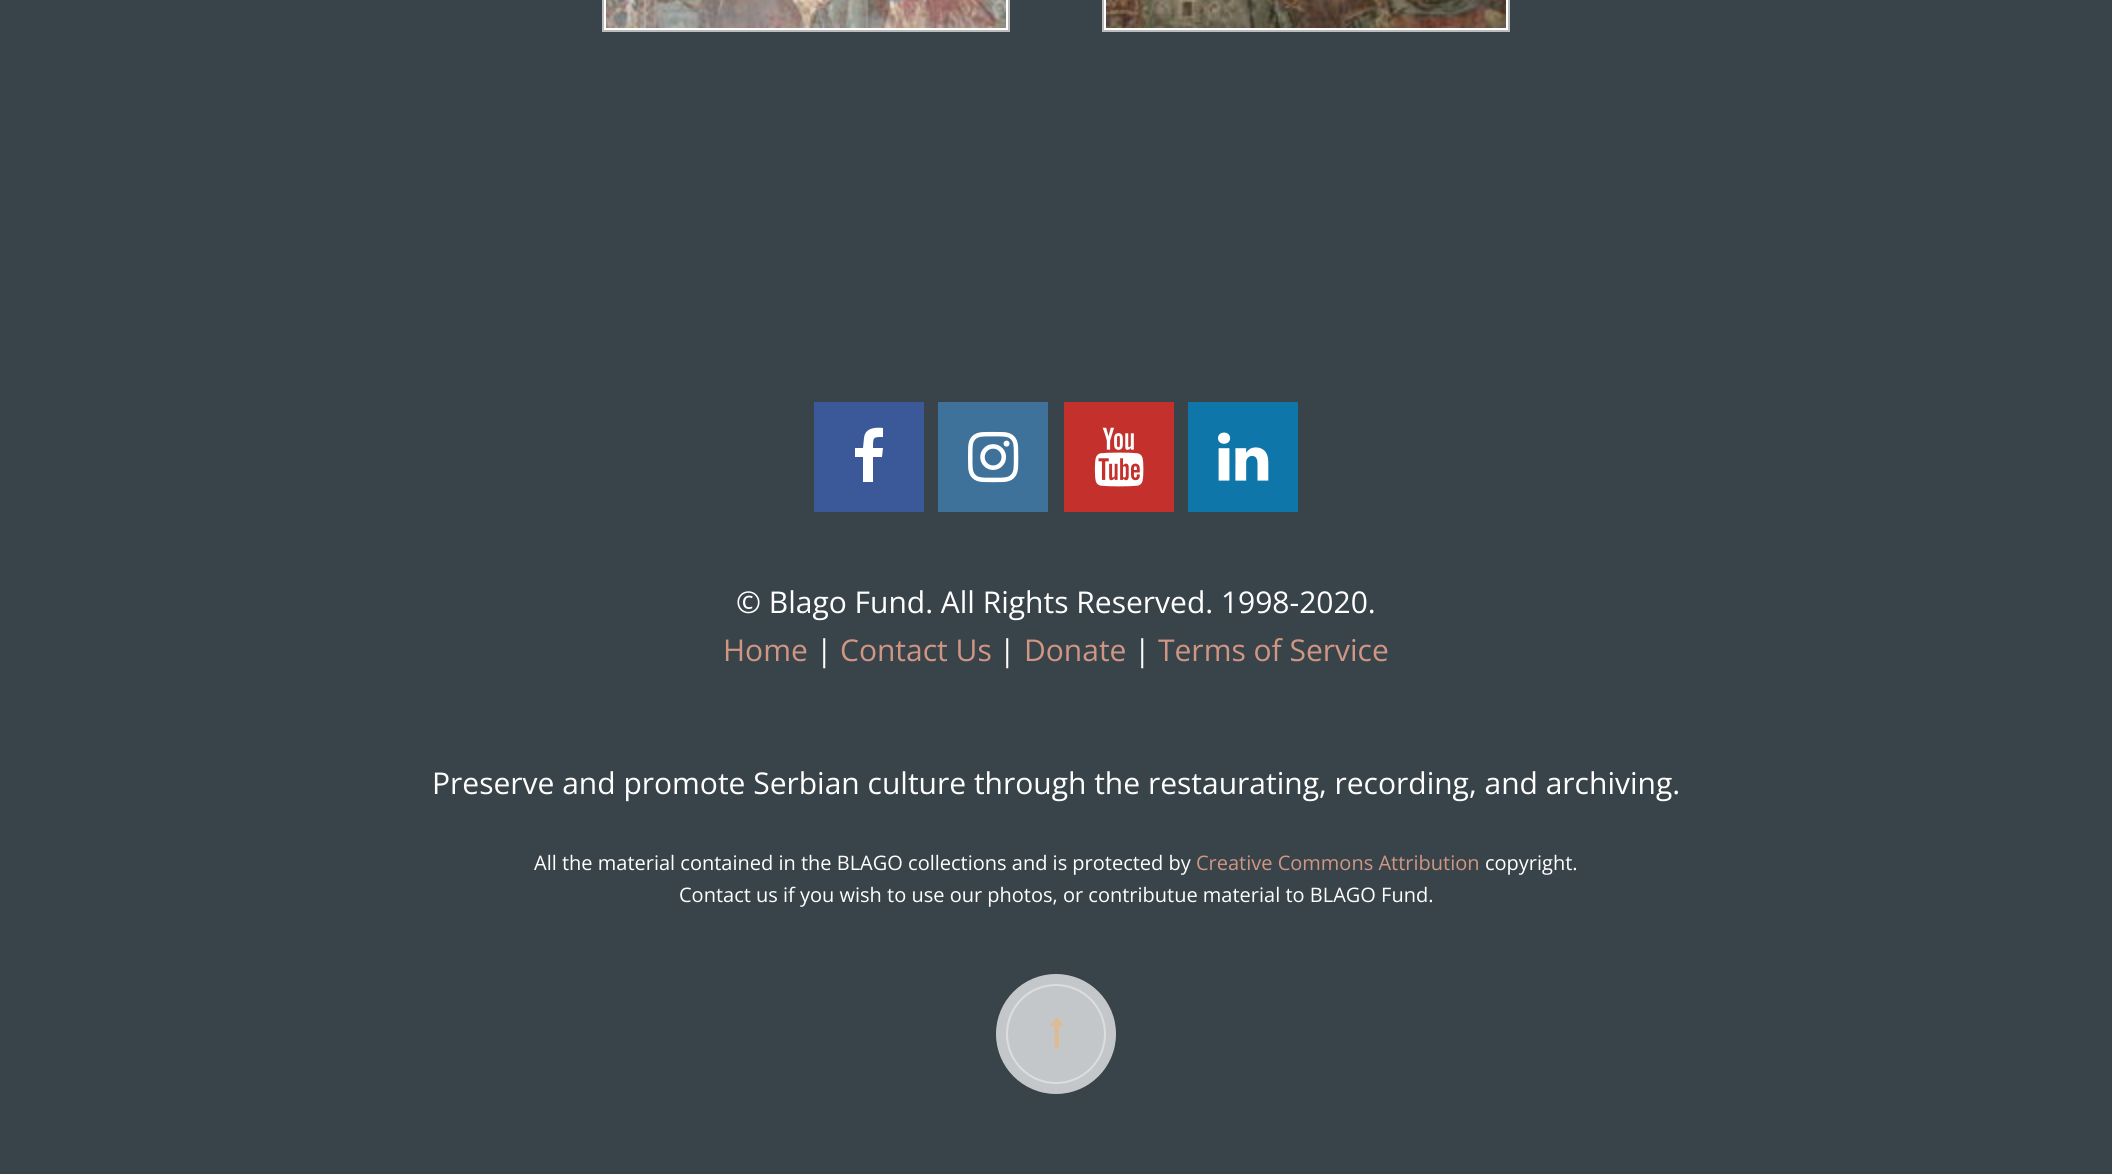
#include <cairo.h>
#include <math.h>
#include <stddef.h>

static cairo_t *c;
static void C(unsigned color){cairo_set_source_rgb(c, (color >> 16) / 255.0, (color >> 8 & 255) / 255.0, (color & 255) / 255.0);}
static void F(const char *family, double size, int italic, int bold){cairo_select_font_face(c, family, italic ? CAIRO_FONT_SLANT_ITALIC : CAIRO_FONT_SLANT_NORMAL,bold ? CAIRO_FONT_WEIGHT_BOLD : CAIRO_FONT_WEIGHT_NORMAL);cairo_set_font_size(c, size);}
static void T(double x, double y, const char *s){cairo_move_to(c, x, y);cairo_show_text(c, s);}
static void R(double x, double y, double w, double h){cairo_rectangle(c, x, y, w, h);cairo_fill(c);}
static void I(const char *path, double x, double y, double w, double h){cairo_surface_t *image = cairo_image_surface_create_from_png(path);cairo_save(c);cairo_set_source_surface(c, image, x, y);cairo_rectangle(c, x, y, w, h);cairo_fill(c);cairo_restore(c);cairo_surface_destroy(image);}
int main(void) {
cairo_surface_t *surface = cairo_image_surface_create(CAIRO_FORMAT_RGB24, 2112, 1174);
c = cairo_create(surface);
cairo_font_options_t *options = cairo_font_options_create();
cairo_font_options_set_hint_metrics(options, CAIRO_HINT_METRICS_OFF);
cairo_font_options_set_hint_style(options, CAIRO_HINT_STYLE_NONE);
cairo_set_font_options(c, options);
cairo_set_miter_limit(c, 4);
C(0x39444a);
cairo_paint(c);
C(0xffffff);
cairo_rectangle(c,603,-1,406,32);
cairo_fill_preserve(c);
C(0xbbbbbb);
cairo_stroke(c);
I("1.png",606,0,400,28);
C(0xffffff);
cairo_rectangle(c,1103,-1,406,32);
cairo_fill_preserve(c);
C(0xbbbbbb);
cairo_stroke(c);
I("2.png",1106,0,400,28);
C(0x3b5998);
R(814,402,110,110);
C(0xffffff);
cairo_new_path(c);
cairo_move_to(c,883,428);
cairo_line_to(c,883,437);
cairo_curve_to(c,873,437,873,437,873,448);
cairo_line_to(c,883,448);
cairo_line_to(c,882,457);
cairo_line_to(c,873,457);
cairo_line_to(c,873,482);
cairo_line_to(c,863,482);
cairo_line_to(c,863,457);
cairo_line_to(c,855,457);
cairo_line_to(c,855,448);
cairo_line_to(c,863,448);
cairo_line_to(c,864,438);
cairo_curve_to(c,865,428,875,427,883,428);
cairo_close_path(c);
cairo_fill(c);
C(0x3f729b);
R(938,402,110,110);
I("3.png",968,431,51,52);
C(0xc4302b);
R(1064,402,110,110);
I("4.png",1094,427,50,60);
C(0x0e76a8);
R(1188,402,110,110);
I("5.png",1218,432,51,49);
F("Open Sans",30,0,0);
C(0xffffff);
T(736,613,"© Blago Fund. All Rights Reserved. 1998-2020.");
C(0xd09683);
T(723,661,"Home");
C(0xffffff);
T(816,661,"|");
C(0xd09683);
T(840,661,"Contact Us");
C(0xffffff);
T(999,661,"|");
C(0xd09683);
T(1024,661,"Donate");
C(0xffffff);
T(1134,661,"|");
C(0xd09683);
T(1158,661,"Terms of Service");
C(0xffffff);
T(432,794,"Preserve and promote Serbian culture through the restaurating, recording, and archiving.");
F("Open Sans",20,0,0);
T(534,870,"All the material contained in the BLAGO collections and is protected by");
C(0xd09683);
T(1196,870,"Creative Commons Attribution");
C(0xffffff);
T(1485,870,"copyright.");
T(679,902,"Contact us if you wish to use our photos, or contributue material to BLAGO Fund.");
C(0xc4c7c9);
cairo_new_path(c);
cairo_arc(c,1056,1034,60,0,2 * M_PI);
cairo_fill(c);
cairo_arc(c,1056,1034,49,0,2 * M_PI);
C(0xdddddd);
cairo_stroke(c);
I("6.png",1050,1017,14,32);
cairo_surface_write_to_png(surface, "o.png");
cairo_font_options_destroy(options);
cairo_destroy(c);
cairo_surface_destroy(surface);
return 0;
}
